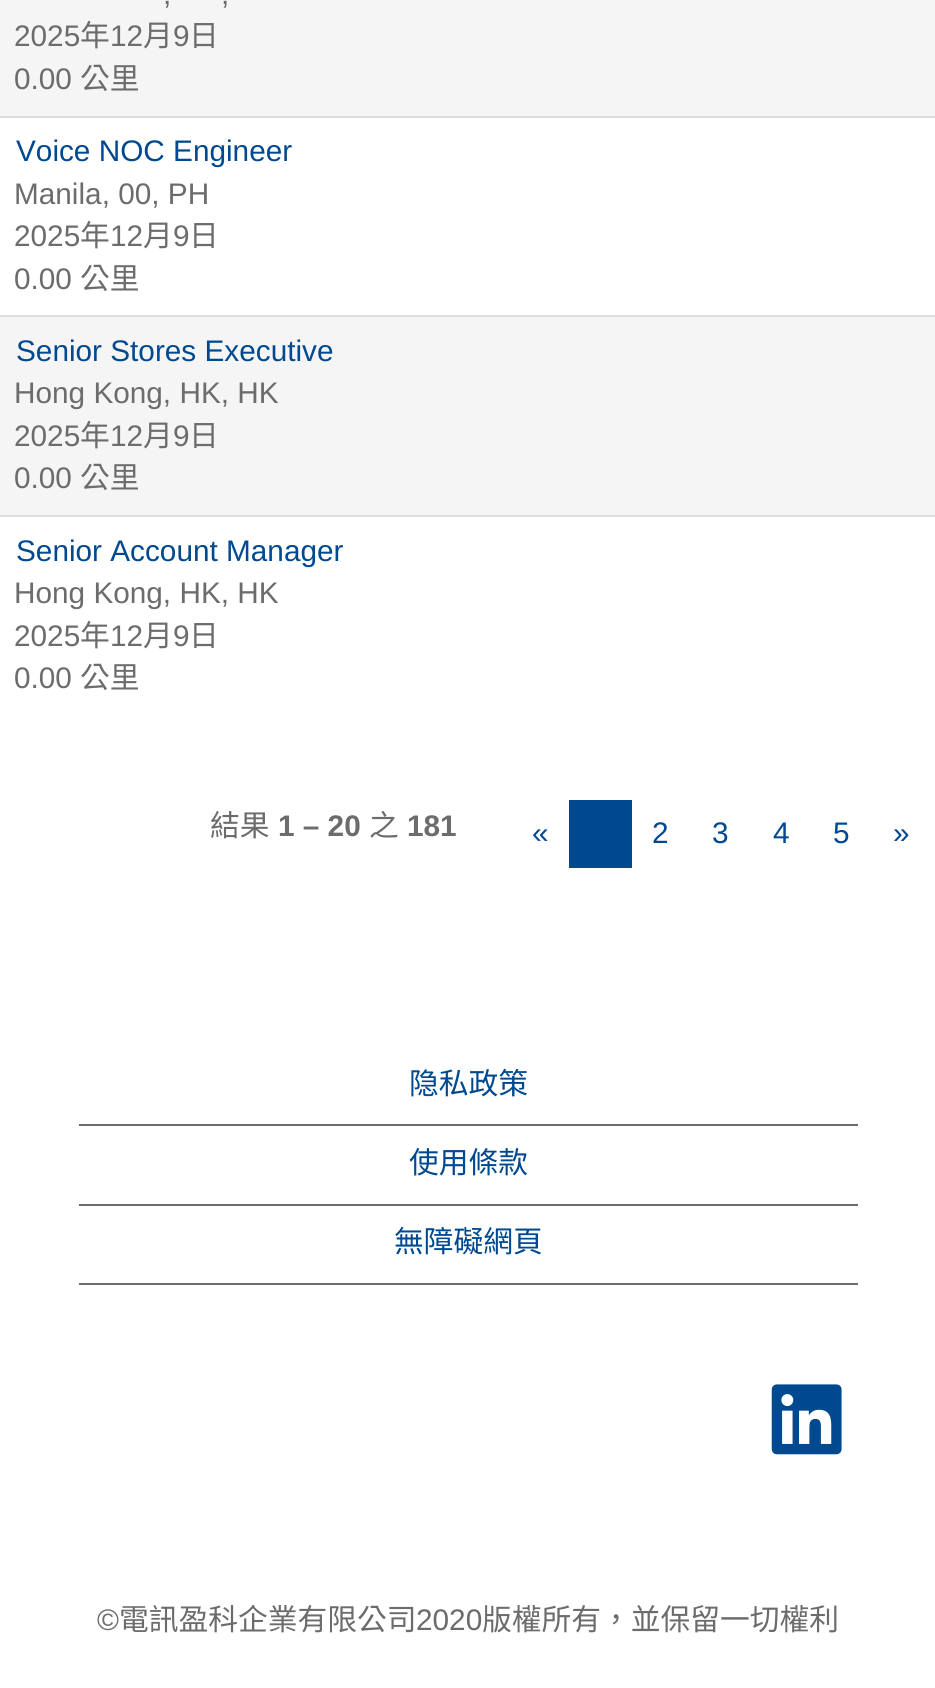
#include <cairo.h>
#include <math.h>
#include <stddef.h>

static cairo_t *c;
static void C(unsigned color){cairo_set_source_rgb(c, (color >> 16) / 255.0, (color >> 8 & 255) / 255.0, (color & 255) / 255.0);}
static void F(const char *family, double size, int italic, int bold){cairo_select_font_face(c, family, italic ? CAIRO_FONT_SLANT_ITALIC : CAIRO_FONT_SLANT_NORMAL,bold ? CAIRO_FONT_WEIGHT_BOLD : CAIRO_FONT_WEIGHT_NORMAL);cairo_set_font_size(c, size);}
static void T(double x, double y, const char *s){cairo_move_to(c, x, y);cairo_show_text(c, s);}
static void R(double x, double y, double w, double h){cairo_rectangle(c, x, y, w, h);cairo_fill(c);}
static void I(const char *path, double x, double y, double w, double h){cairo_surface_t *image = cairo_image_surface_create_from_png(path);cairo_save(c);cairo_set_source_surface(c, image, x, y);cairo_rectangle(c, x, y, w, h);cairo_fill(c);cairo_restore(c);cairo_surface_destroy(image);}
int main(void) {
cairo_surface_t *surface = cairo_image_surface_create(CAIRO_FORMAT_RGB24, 935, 1688);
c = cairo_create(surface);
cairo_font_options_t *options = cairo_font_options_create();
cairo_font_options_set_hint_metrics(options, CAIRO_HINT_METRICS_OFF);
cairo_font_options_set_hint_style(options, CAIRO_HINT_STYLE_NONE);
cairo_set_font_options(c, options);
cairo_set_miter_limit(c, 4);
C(0xffffff);
cairo_paint(c);
C(0xf5f5f5);
R(0,0,935,116);
F("Liberation Sans",29.75,0,0);
C(0x6c6c6c);
T(163,4,",");
T(221,4,",");
T(14,46,"2025");
F("Noto Sans CJK TC",29.75,0,0);
T(80,46,"年");
F("Liberation Sans",29.75,0,0);
T(110,46,"12");
F("Noto Sans CJK TC",29.75,0,0);
T(143,46,"月");
F("Liberation Sans",29.75,0,0);
T(173,46,"9");
F("Noto Sans CJK TC",29.75,0,0);
T(189,46,"日");
F("Liberation Sans",29.75,0,0);
T(14,89,"0.00");
F("Noto Sans CJK TC",29.75,0,0);
T(80,89,"公里");
C(0xdddddd);
R(0,116,935,2);
F("Liberation Sans",29.75,0,0);
C(0x00498f);
T(16,161,"Voice NOC Engineer");
C(0x6c6c6c);
T(14,204,"Manila, 00, PH");
T(14,246,"2025");
F("Noto Sans CJK TC",29.75,0,0);
T(80,246,"年");
F("Liberation Sans",29.75,0,0);
T(110,246,"12");
F("Noto Sans CJK TC",29.75,0,0);
T(143,246,"月");
F("Liberation Sans",29.75,0,0);
T(173,246,"9");
F("Noto Sans CJK TC",29.75,0,0);
T(189,246,"日");
F("Liberation Sans",29.75,0,0);
T(14,289,"0.00");
F("Noto Sans CJK TC",29.75,0,0);
T(80,289,"公里");
C(0xf5f5f5);
R(0,317,935,198);
C(0xdddddd);
R(0,315,935,2);
F("Liberation Sans",29.75,0,0);
C(0x00498f);
T(16,361,"Senior Stores Executive");
C(0x6c6c6c);
T(14,403,"Hong Kong, HK, HK");
T(14,446,"2025");
F("Noto Sans CJK TC",29.75,0,0);
T(80,446,"年");
F("Liberation Sans",29.75,0,0);
T(110,446,"12");
F("Noto Sans CJK TC",29.75,0,0);
T(143,446,"月");
F("Liberation Sans",29.75,0,0);
T(173,446,"9");
F("Noto Sans CJK TC",29.75,0,0);
T(189,446,"日");
F("Liberation Sans",29.75,0,0);
T(14,488,"0.00");
F("Noto Sans CJK TC",29.75,0,0);
T(80,488,"公里");
C(0xdddddd);
R(0,515,935,2);
F("Liberation Sans",29.75,0,0);
C(0x00498f);
T(16,561,"Senior Account Manager");
C(0x6c6c6c);
T(14,603,"Hong Kong, HK, HK");
T(14,646,"2025");
F("Noto Sans CJK TC",29.75,0,0);
T(80,646,"年");
F("Liberation Sans",29.75,0,0);
T(110,646,"12");
F("Noto Sans CJK TC",29.75,0,0);
T(143,646,"月");
F("Liberation Sans",29.75,0,0);
T(173,646,"9");
F("Noto Sans CJK TC",29.75,0,0);
T(189,646,"日");
F("Liberation Sans",29.75,0,0);
T(14,688,"0.00");
F("Noto Sans CJK TC",29.75,0,0);
T(80,688,"公里");
T(210,836,"結果");
F("Liberation Sans",29.75,0,1);
T(278,836,"1 – 20");
F("Noto Sans CJK TC",29.75,0,0);
T(369,836,"之");
F("Liberation Sans",29.75,0,1);
T(407,836,"181");
F("Liberation Sans",29.75,0,0);
C(0x00498f);
T(532,843,"«");
R(569,800,63,68);
T(652,843,"2");
T(712,843,"3");
T(773,843,"4");
T(833,843,"5");
T(893,843,"»");
C(0x6c6c6c);
R(79,1124,779,2);
F("Noto Sans CJK TC",29.75,0,0);
C(0x00498f);
T(409,1094,"隐私政策");
C(0x6c6c6c);
R(79,1204,779,2);
C(0x00498f);
T(409,1173,"使用條款");
C(0x6c6c6c);
R(79,1283,779,2);
C(0x00498f);
T(394,1252,"無障礙網頁");
I("1.png",771,1384,71,71);
F("Liberation Sans",29.75,0,0);
C(0x6c6c6c);
T(97,1630,"©");
F("Noto Sans CJK TC",29.75,0,0);
T(119,1630,"電訊盈科企業有限公司");
F("Liberation Sans",29.75,0,0);
T(416,1630,"2020");
F("Noto Sans CJK TC",29.75,0,0);
T(482,1630,"版權所有，並保留一切權利");
cairo_surface_write_to_png(surface, "o.png");
cairo_font_options_destroy(options);
cairo_destroy(c);
cairo_surface_destroy(surface);
return 0;
}
